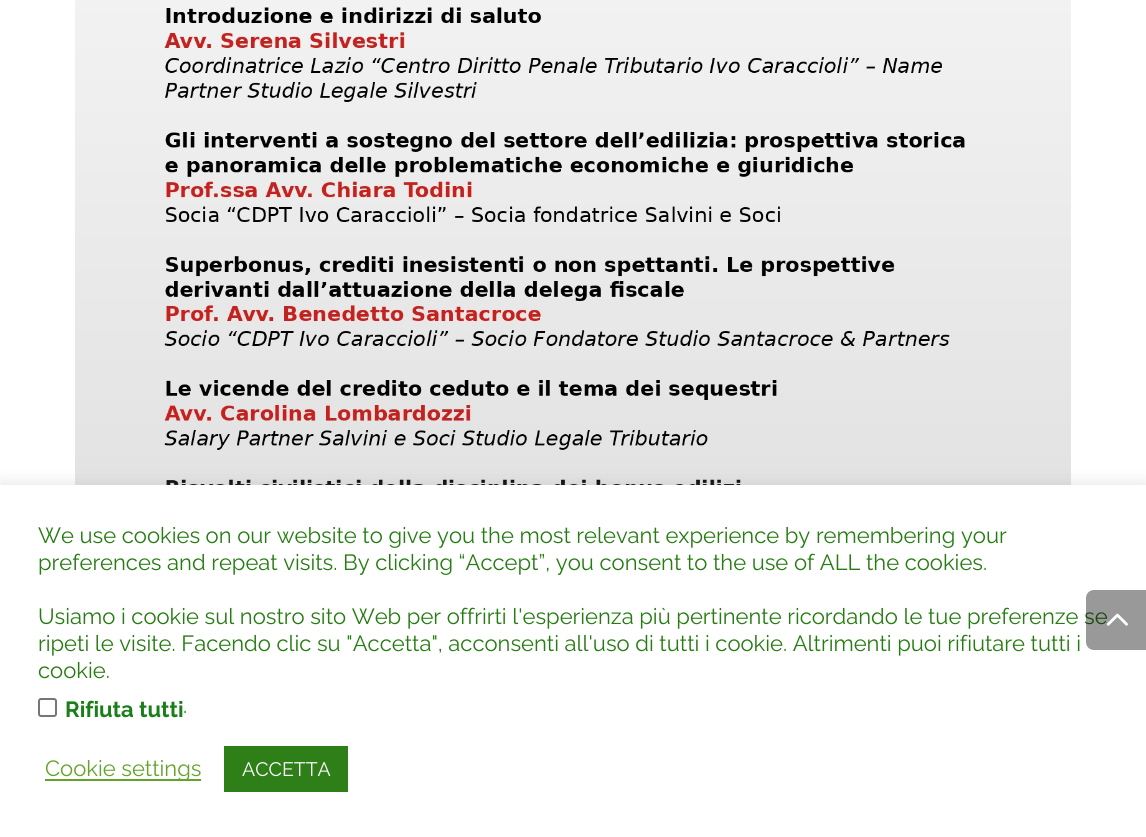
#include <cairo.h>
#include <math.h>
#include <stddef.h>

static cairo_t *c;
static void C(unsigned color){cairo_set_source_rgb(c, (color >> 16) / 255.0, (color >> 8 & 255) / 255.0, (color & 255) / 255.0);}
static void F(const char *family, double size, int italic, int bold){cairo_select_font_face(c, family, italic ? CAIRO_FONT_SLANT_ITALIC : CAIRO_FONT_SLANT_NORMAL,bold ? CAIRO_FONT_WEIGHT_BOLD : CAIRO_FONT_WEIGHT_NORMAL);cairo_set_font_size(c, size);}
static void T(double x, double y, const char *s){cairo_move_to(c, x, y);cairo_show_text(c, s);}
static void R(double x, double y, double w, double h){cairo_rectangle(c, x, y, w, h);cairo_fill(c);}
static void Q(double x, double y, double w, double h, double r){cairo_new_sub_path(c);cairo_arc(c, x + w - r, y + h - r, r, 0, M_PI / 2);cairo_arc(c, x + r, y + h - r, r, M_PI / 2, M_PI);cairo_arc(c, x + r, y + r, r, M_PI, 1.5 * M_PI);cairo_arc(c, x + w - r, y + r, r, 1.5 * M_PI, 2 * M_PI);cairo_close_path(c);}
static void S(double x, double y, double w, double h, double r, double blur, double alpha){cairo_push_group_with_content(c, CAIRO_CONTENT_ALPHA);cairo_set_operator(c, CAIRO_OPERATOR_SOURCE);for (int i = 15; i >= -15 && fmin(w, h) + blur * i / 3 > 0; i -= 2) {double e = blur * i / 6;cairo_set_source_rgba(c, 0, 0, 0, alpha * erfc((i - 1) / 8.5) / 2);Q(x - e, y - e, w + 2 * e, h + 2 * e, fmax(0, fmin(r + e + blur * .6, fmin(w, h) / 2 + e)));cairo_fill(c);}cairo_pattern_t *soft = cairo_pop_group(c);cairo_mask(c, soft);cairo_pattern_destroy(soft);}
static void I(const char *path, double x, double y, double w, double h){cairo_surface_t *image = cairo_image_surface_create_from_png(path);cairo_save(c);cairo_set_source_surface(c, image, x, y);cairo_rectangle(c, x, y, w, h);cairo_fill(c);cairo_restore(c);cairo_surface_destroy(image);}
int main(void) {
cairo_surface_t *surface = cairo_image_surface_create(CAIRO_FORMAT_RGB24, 1146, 837);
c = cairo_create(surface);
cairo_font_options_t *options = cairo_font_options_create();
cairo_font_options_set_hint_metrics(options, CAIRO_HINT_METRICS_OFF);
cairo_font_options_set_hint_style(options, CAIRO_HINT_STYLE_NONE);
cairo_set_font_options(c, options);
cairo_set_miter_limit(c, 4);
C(0xffffff);
cairo_paint(c);
I("1.png",75,0,996,485);
C(0xacabab);
S(0,483,1146,353,0,7.5,.3);
C(0xffffff);
R(0,485,1146,352);
F("Raleway",22,0,0);
C(0x257c11);
T(38,624,"Usiamo i cookie sul nostro sito Web per offrirti l'esperienza più pertinente ricordando le tue preferenze se");
cairo_set_source_rgba(c,0,0,0,0.4);
cairo_new_path(c);
cairo_move_to(c,1094,590);
cairo_line_to(c,1146,590);
cairo_line_to(c,1146,650);
cairo_line_to(c,1094,650);
cairo_curve_to(c,1089.5,650,1086,646.5,1086,642);
cairo_line_to(c,1086,598);
cairo_curve_to(c,1086,593.5,1089.5,590,1094,590);
cairo_close_path(c);
cairo_fill(c);
I("2.png",1106,613,22,13);
C(0x257c11);
T(38,543,"We use cookies on our website to give you the most relevant experience by remembering your");
T(38,570,"preferences and repeat visits. By clicking “Accept”, you consent to the use of ALL the cookies.");
T(38,651,"ripeti le visite. Facendo clic su \"Accetta\", acconsenti all'uso di tutti i cookie. Altrimenti puoi rifiutare tutti i");
T(38,678,"cookie.");
Q(39,699,17,17,2);
C(0x767676);
cairo_stroke(c);
F("Raleway",22,0,1);
C(0x187f19);
T(65,717,"Rifiuta tutti");
F("Raleway",22,0,0);
C(0x257c11);
T(183,713,".");
C(0x62a329);
R(45,779,156,2);
T(45,776,"Cookie settings");
C(0x2f7f19);
R(224,746,124,46);
F("Raleway",19.5,0,0);
C(0xffffff);
T(242,776,"ACCETTA");
cairo_surface_write_to_png(surface, "o.png");
cairo_font_options_destroy(options);
cairo_destroy(c);
cairo_surface_destroy(surface);
return 0;
}
